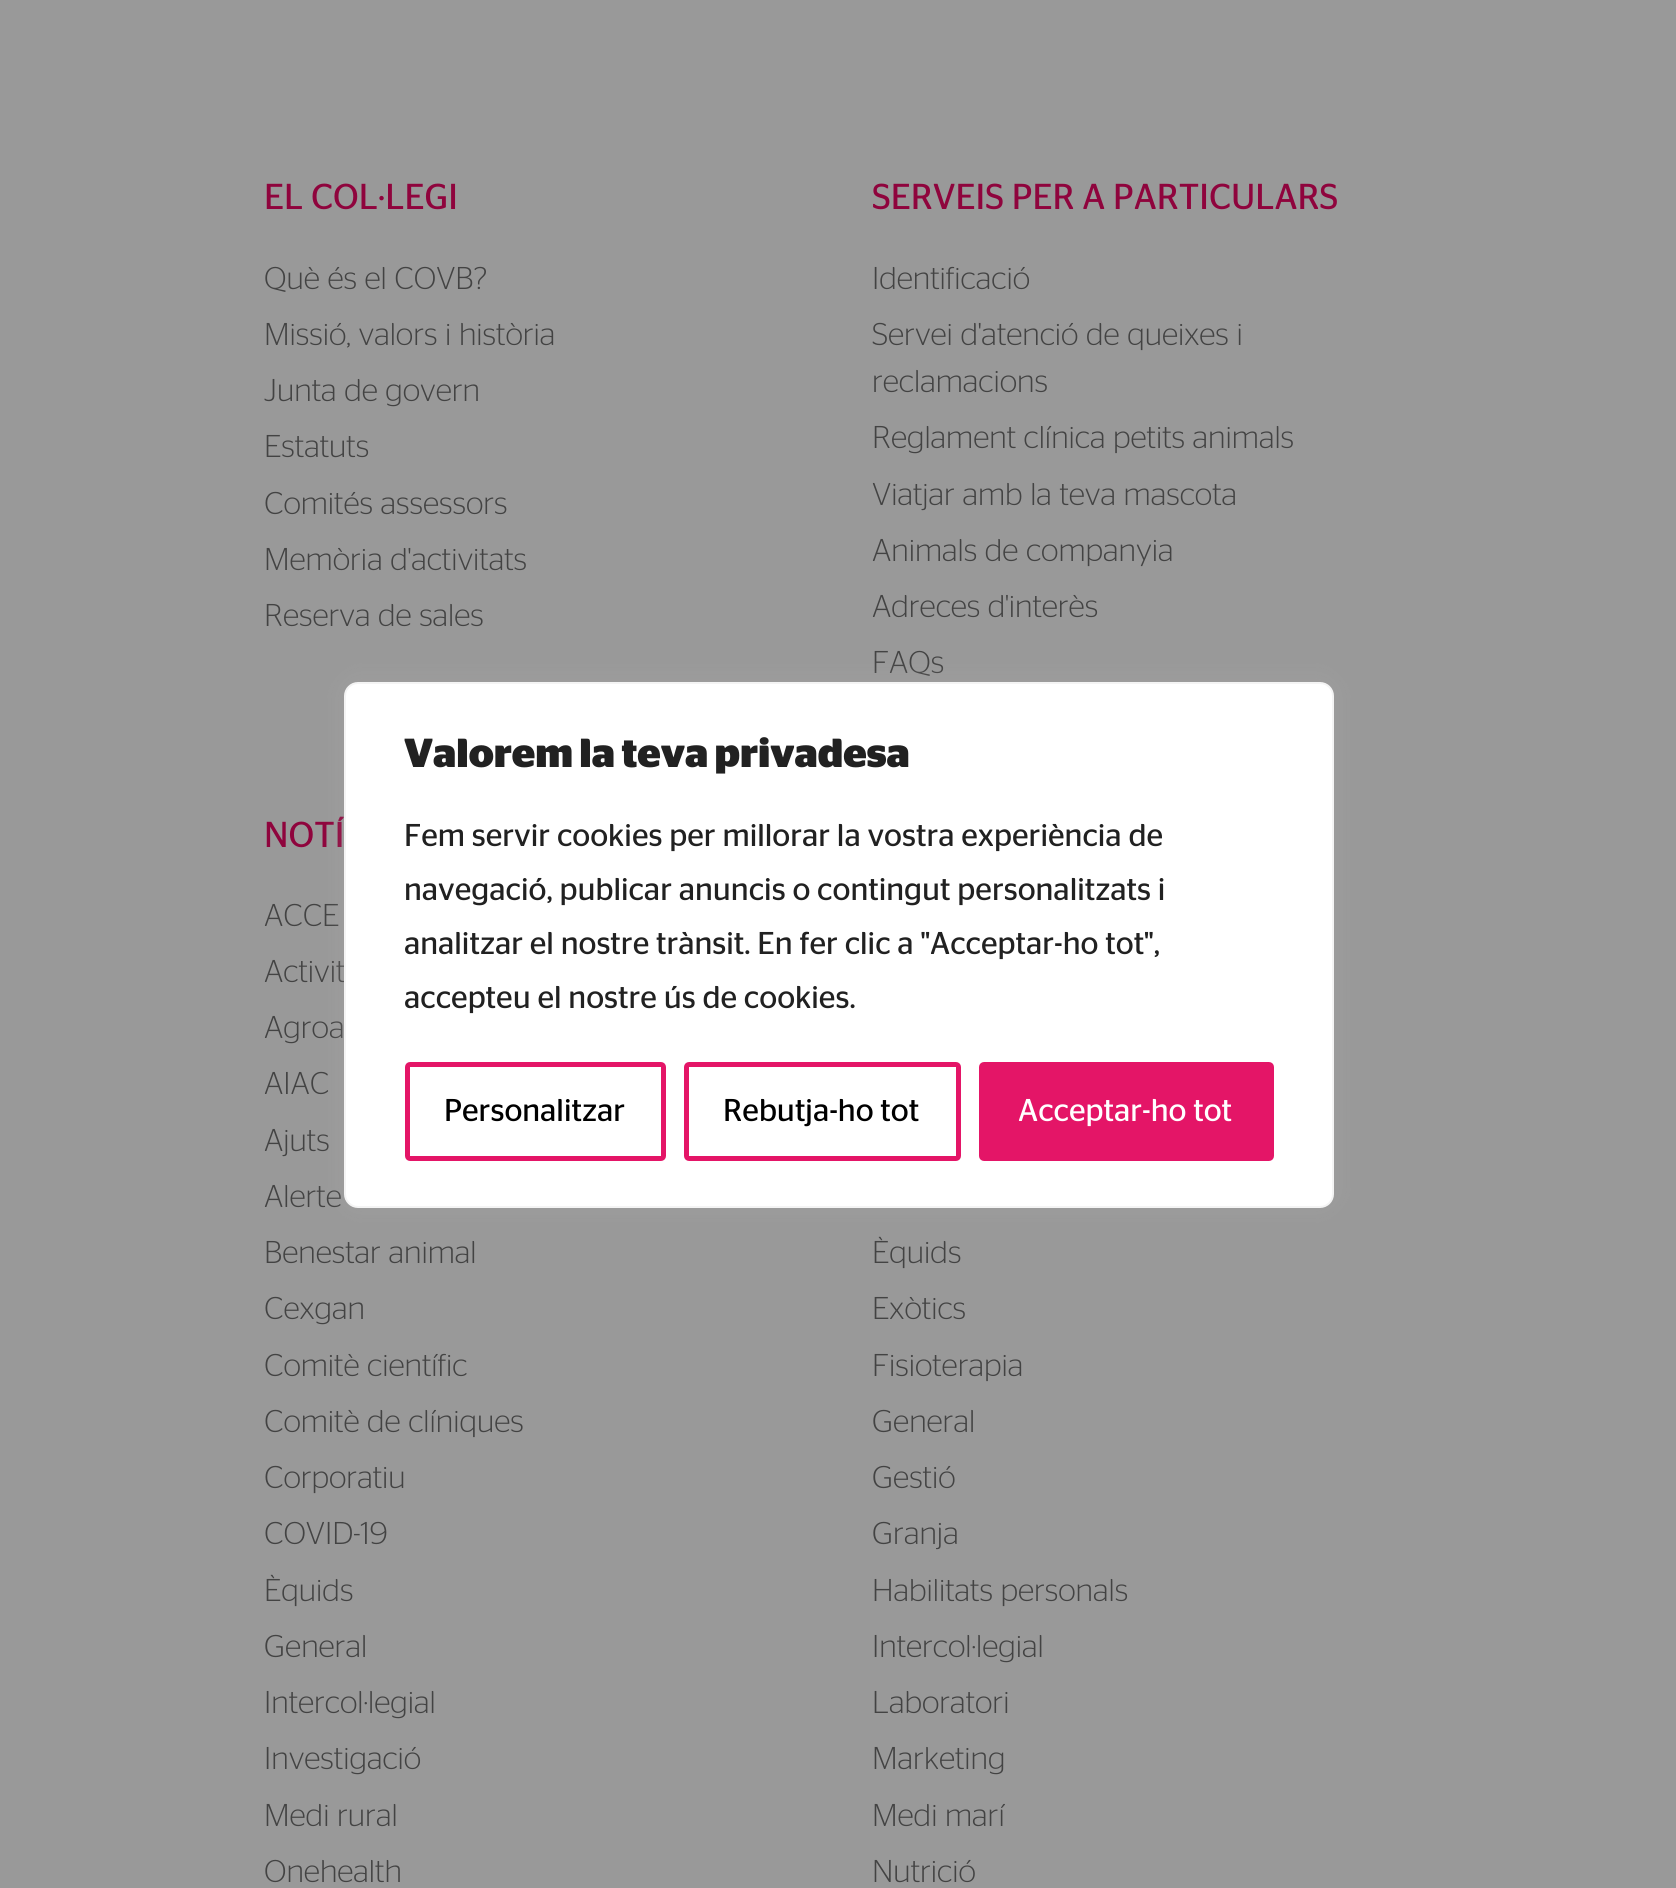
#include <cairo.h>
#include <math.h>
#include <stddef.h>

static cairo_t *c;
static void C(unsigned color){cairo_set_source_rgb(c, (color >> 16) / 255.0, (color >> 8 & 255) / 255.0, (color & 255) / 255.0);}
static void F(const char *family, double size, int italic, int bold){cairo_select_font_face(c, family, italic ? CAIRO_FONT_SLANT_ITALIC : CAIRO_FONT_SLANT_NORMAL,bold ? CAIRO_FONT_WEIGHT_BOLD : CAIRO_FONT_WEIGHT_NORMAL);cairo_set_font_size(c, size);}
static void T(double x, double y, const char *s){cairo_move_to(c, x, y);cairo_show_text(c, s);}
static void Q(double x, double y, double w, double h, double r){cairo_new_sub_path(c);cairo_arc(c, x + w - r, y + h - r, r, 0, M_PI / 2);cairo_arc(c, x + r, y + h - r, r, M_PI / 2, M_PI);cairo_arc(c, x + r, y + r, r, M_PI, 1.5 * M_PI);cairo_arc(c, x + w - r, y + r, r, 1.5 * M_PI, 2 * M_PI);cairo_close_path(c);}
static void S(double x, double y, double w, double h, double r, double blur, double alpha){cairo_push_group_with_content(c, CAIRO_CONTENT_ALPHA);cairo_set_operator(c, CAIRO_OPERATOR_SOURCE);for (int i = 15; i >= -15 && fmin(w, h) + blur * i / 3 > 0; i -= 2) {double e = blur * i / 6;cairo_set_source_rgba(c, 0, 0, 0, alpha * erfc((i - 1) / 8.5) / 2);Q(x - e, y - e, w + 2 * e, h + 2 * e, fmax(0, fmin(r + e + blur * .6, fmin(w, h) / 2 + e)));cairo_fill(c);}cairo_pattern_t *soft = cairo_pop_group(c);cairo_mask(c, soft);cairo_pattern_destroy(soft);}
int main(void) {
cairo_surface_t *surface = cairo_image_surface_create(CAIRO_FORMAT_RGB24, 1676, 1888);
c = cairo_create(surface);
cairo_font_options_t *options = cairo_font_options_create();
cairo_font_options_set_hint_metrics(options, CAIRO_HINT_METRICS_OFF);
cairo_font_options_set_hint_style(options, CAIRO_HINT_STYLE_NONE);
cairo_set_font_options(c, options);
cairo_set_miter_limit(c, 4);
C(0x999999);
cairo_paint(c);
F("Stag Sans",36,0,0);
C(0x8f043d);
T(264,209,"EL COL·LEGI");
F("Stag Sans Light",31.5,0,0);
C(0x434343);
T(264,289,"Què és el COVB?");
T(264,345,"Missió, valors i història");
T(264,401,"Junta de govern");
T(264,457,"Estatuts");
T(264,514,"Comités assessors");
T(264,570,"Memòria d'activitats");
T(264,626,"Reserva de sales");
F("Stag Sans",36,0,0);
C(0x8f043d);
T(872,209,"SERVEIS PER A PARTICULARS");
F("Stag Sans Light",31.5,0,0);
C(0x434343);
T(872,289,"Identificació");
T(872,345,"Servei d'atenció de queixes i");
T(872,392,"reclamacions");
T(872,448,"Reglament clínica petits animals");
T(872,505,"Viatjar amb la teva mascota");
T(872,561,"Animals de companyia");
T(872,617,"Adreces d'interès");
T(872,673,"FAQs");
F("Stag Sans",36,0,0);
C(0x8f043d);
T(264,847,"NOTÍ");
F("Stag Sans Light",31.5,0,0);
C(0x434343);
T(264,926,"ACCE");
T(264,982,"Activit");
T(264,1038,"Agroa");
T(264,1094,"AIAC");
T(264,1151,"Ajuts");
T(264,1207,"Alerte");
T(264,1263,"Benestar animal");
T(264,1319,"Cexgan");
T(264,1376,"Comitè científic");
T(264,1432,"Comitè de clíniques");
T(264,1488,"Corporatiu");
T(264,1544,"COVID-19");
T(264,1601,"Èquids");
T(264,1657,"General");
T(264,1713,"Intercol·legial");
T(264,1769,"Investigació");
T(264,1826,"Medi rural");
T(264,1882,"Onehealth");
T(872,1263,"Èquids");
T(872,1319,"Exòtics");
T(872,1376,"Fisioterapia");
T(872,1432,"General");
T(872,1488,"Gestió");
T(872,1544,"Granja");
T(872,1601,"Habilitats personals");
T(872,1657,"Intercol·legial");
T(872,1713,"Laboratori");
T(872,1769,"Marketing");
T(872,1826,"Medi marí");
T(872,1882,"Nutrició");
C(0xacabab);
S(344,680,990,526,14,11,.3);
C(0xffffff);
Q(345,683,988,524,13);
cairo_fill_preserve(c);
C(0xf4f4f4);
cairo_stroke(c);
F("Stag Sans",40.5,0,1);
C(0x212121);
T(404,767,"Valorem la teva privadesa");
F("Stag Sans",31.5,0,0);
T(404,846,"Fem servir cookies per millorar la vostra experiència de");
T(404,900,"navegació, publicar anuncis o contingut personalitzats i");
T(404,954,"analitzar el nostre trànsit. En fer clic a \"Acceptar-ho tot\",");
T(404,1008,"accepteu el nostre ús de cookies.");
Q(407.5,1064.5,256,94,2.5);
C(0xe41567);
cairo_set_line_width(c,5);
cairo_stroke(c);
C(0x000000);
T(444,1121,"Personalitzar");
Q(686.5,1064.5,272,94,2.5);
C(0xe41567);
cairo_stroke(c);
C(0x000000);
T(723,1121,"Rebutja-ho tot");
C(0xe41567);
Q(981.5,1064.5,290,94,2.5);
cairo_fill_preserve(c);
cairo_stroke(c);
C(0xffffff);
T(1018,1121,"Acceptar-ho tot");
cairo_surface_write_to_png(surface, "o.png");
cairo_font_options_destroy(options);
cairo_destroy(c);
cairo_surface_destroy(surface);
return 0;
}
